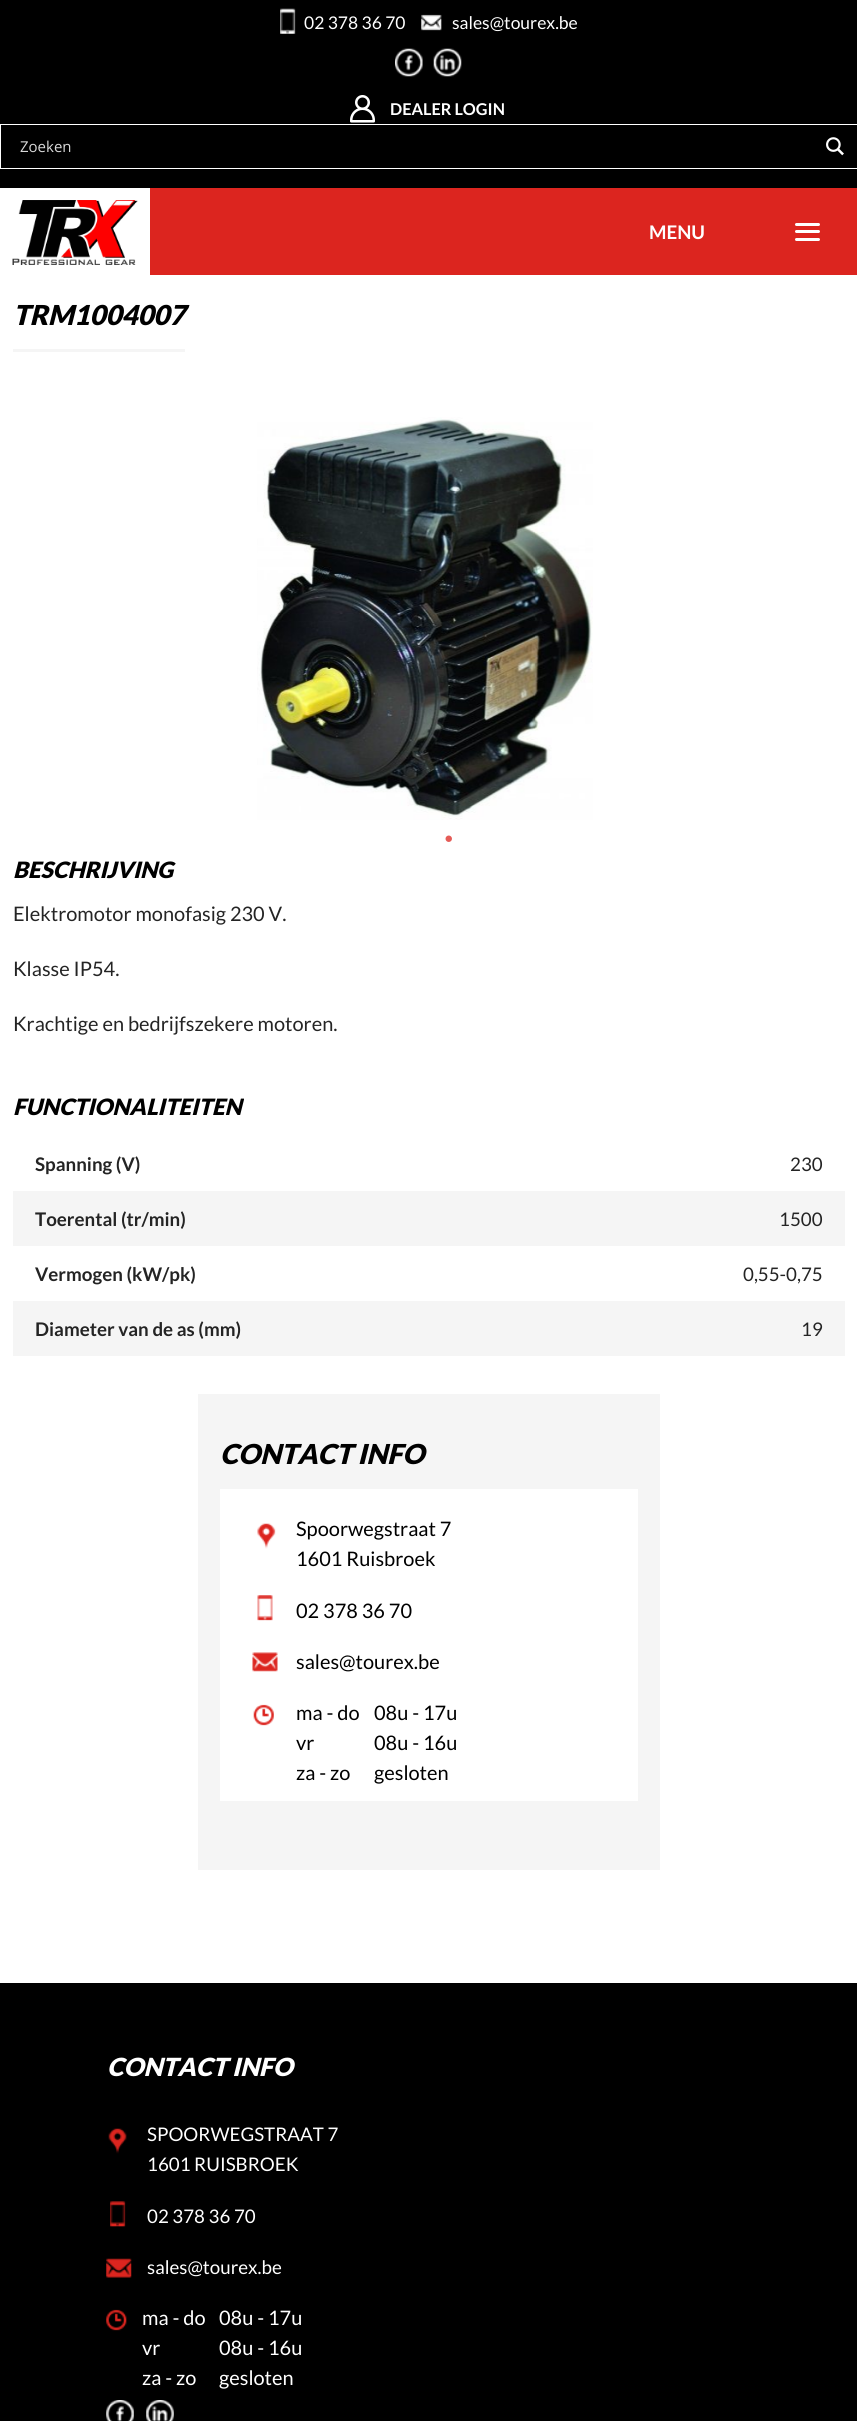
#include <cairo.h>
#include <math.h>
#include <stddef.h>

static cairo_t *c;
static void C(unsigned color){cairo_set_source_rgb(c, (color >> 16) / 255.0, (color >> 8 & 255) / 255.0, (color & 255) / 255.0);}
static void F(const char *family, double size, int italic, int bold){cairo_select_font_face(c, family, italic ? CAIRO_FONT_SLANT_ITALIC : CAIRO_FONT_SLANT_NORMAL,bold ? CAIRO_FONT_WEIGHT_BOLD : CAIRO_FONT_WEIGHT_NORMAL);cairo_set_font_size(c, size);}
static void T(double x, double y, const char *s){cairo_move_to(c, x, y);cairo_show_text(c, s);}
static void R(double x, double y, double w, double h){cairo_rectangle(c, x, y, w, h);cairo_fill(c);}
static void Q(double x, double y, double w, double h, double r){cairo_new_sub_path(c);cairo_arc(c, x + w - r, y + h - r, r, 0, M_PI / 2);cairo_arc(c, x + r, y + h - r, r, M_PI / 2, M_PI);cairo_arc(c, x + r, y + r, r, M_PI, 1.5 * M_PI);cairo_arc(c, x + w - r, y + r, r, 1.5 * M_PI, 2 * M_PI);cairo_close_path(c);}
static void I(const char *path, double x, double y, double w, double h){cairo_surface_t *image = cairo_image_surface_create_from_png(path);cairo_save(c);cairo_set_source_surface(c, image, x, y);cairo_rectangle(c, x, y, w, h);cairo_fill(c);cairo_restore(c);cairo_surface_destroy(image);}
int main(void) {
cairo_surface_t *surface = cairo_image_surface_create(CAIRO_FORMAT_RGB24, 857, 2421);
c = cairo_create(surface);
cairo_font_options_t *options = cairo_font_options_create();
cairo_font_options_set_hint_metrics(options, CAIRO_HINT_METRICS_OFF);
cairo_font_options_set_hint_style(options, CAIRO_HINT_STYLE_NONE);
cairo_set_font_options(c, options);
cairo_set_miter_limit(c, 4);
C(0xffffff);
cairo_paint(c);
C(0x000000);
R(0,0,857,188);
I("1.png",280,8,16,26);
F("Lato",17.5,0,0);
C(0xffffff);
T(304,29,"02 378 36 70");
I("2.png",421,14,21,17);
T(452,29,"sales@tourex.be");
I("3.png",395,48,28,29);
I("4.png",433,48,29,29);
I("5.png",350,95,25,28);
F("Lato",16.25,0,1);
T(390,115,"DEALER LOGIN");
cairo_rectangle(c,.5,124.5,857,44);
cairo_set_line_width(c,1);
cairo_stroke(c);
F("Open Sans",15,0,0);
C(0xd9d9d9);
T(20,152,"Zoeken");
I("6.png",826,137,18,19);
C(0xdc251f);
R(150,188,707,87);
I("7.png",12,200,126,65);
F("Lato",18.75,0,1);
C(0xffffff);
T(649,239,"MENU");
Q(795,223,25,3,1.5);
cairo_fill(c);
Q(795,230,25,3,1.5);
cairo_fill(c);
Q(795,238,25,3,1.5);
cairo_fill(c);
C(0xf5f5f5);
R(13,349,172,3);
F("Lato Black",27.5,1,0);
C(0x000000);
T(13,325,"TRM1004007");
I("8.png",257,417,336,403);
I("9.png",445,835,7,7);
F("Lato Black",22.5,1,0);
T(13,878,"BESCHRIJVING");
F("Lato",20,0,0);
C(0x242424);
T(13,921,"Elektromotor monofasig 230 V.");
T(13,976,"Klasse IP54.");
T(13,1031,"Krachtige en bedrijfszekere motoren.");
F("Lato Black",22.5,1,0);
C(0x000000);
T(13,1115,"FUNCTIONALITEITEN");
F("Lato",18.75,0,1);
C(0x242424);
T(35,1171,"Spanning (V)");
F("Lato",18.75,0,0);
T(790,1171,"230");
C(0xf5f5f5);
R(13,1191,832,55);
F("Lato",18.75,0,1);
C(0x242424);
T(35,1226,"Toerental (tr/min)");
F("Lato",18.75,0,0);
T(779,1226,"1500");
F("Lato",18.75,0,1);
T(35,1281,"Vermogen (kW/pk)");
F("Lato",18.75,0,0);
T(743,1281,"0,55-0,75");
C(0xf5f5f5);
R(13,1301,832,55);
F("Lato",18.75,0,1);
C(0x242424);
T(35,1336,"Diameter van de as (mm)");
F("Lato",18.75,0,0);
T(801,1336,"19");
C(0xf5f5f5);
R(198,1394,462,476);
F("Lato Black",27.5,1,0);
C(0x000000);
T(220,1464,"CONTACT INFO");
C(0xffffff);
R(220,1489,418,312);
I("10.png",257,1523,19,26);
F("Lato",20,0,0);
C(0x000000);
T(296,1536,"Spoorwegstraat 7");
T(296,1566,"1601 Ruisbroek");
I("11.png",257,1595,16,26);
T(296,1618,"02 378 36 70");
I("12.png",252,1652,26,20);
T(296,1669,"sales@tourex.be");
I("13.png",253,1704,21,22);
T(296,1720,"ma - do");
T(374,1720,"08u - 17u");
T(296,1750,"vr");
T(374,1750,"08u - 16u");
T(296,1780,"za - zo");
T(374,1780,"gesloten");
R(0,1983,857,438);
F("Lato Black",25,1,0);
C(0xffffff);
T(107,2076,"CONTACT INFO");
I("14.png",108,2128,19,26);
F("Lato",18.75,0,0);
T(147,2141,"SPOORWEGSTRAAT 7");
T(147,2171,"1601 RUISBROEK");
I("15.png",110,2201,16,26);
T(147,2223,"02 378 36 70");
I("16.png",106,2258,26,20);
T(147,2274,"sales@tourex.be");
I("17.png",106,2309,21,22);
F("Lato",20,0,0);
T(142,2325,"ma - do");
T(219,2325,"08u - 17u");
T(142,2355,"vr");
T(219,2355,"08u - 16u");
T(142,2385,"za - zo");
T(219,2385,"gesloten");
I("18.png",106,2400,28,21);
I("19.png",146,2400,28,21);
cairo_surface_write_to_png(surface, "o.png");
cairo_font_options_destroy(options);
cairo_destroy(c);
cairo_surface_destroy(surface);
return 0;
}
